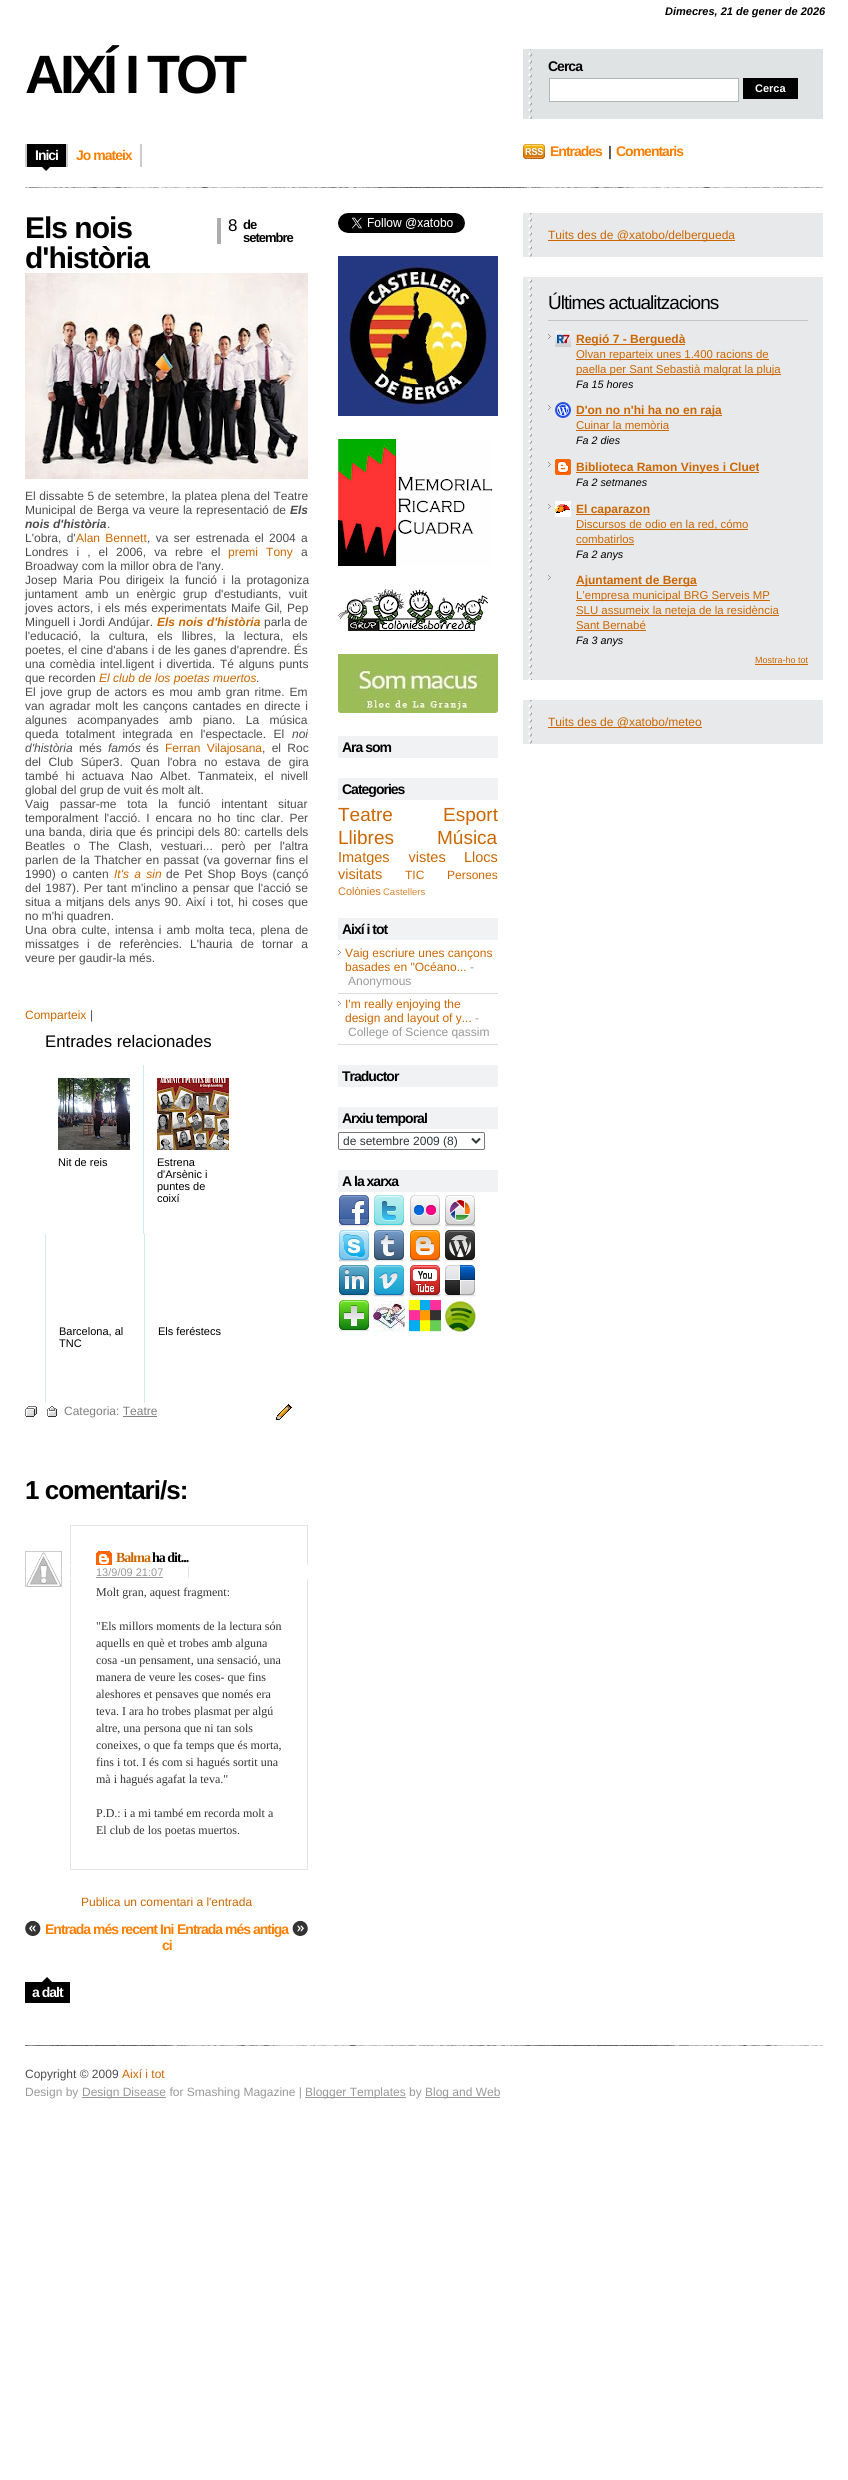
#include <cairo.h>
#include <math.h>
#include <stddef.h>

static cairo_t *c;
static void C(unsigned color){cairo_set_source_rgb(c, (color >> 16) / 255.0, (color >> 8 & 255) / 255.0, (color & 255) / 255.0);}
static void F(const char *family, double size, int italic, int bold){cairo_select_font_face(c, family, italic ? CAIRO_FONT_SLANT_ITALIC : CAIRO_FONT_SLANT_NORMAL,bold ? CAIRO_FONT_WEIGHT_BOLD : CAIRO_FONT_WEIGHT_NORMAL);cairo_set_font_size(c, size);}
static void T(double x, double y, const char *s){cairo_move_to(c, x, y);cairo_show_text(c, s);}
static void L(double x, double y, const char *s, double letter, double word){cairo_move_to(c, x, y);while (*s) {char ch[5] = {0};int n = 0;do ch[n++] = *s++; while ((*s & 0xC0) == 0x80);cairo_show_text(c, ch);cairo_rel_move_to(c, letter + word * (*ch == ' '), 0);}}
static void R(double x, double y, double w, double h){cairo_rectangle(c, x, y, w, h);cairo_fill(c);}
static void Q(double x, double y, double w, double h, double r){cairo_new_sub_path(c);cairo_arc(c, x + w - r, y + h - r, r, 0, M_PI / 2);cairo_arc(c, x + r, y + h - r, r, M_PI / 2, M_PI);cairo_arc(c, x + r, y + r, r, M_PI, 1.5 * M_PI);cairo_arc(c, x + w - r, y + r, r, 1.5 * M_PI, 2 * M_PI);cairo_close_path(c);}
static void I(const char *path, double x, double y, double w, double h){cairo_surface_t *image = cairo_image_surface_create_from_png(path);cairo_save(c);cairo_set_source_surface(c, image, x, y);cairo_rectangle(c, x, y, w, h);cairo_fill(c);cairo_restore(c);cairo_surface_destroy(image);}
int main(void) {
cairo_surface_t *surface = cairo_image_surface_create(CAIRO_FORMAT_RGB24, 848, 2480);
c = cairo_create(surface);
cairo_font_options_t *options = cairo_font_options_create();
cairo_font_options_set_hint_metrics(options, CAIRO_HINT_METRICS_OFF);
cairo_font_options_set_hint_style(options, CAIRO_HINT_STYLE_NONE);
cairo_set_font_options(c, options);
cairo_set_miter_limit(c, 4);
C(0xffffff);
cairo_paint(c);
F("Liberation Sans",11,1,1);
C(0x000000);
T(665,15,"Dimecres, 21 de gener de 2026");
F("Liberation Sans",54,0,1);
L(25,93,"AIXÍ I TOT",-4,0);
C(0xe0e3e4);
R(523,49,300,70);
I("1.png",528,49,4,70);
F("Liberation Sans",14,0,1);
C(0x000000);
L(548,71,"Cerca",-1,0);
C(0xffffff);
cairo_rectangle(c,549.5,78.5,189,23);
cairo_fill_preserve(c);
C(0xb3b6b7);
cairo_set_line_width(c,1);
cairo_stroke(c);
C(0x000000);
R(743,78,55,21);
F("Liberation Sans",11,0,1);
C(0xffffff);
T(755,92,"Cerca");
C(0xcccccc);
R(25,144,2,23);
R(66,144,2,23);
C(0x000000);
R(27,144,39,27);
I("2.png",27,167,39,5);
F("Liberation Sans",14,0,1);
C(0xffffff);
L(35,160,"Inici",-1,0);
C(0xcccccc);
R(140,144,2,23);
C(0xff7e00);
L(76,160,"Jo mateix",-1,0);
I("3.png",523,144,22,15);
L(550,156,"Entrades",-1,0);
C(0x4c4c4c);
L(608,156,"|",-1,0);
C(0xff7e00);
L(616,156,"Comentaris",-1,0);
I("4.png",25,187,798,1);
F("Liberation Sans",30,0,1);
C(0x000000);
L(25,238,"Els nois",-1,0);
L(25,268,"d'història",-1,0);
C(0xadadad);
R(217,218,4,26);
F("Liberation Sans",17,0,0);
C(0x000000);
L(228,231,"8",-1,0);
F("Liberation Sans",13,0,1);
L(243,229,"de",-1,0);
L(243,242,"setembre",-1,0);
I("5.png",25,273,283,206);
F("Liberation Sans",12,0,0);
C(0x4c4c4c);
L(25,500,"El dissabte 5 de setembre, la platea plena del Teatre",0,.25);
L(25,514,"Municipal de Berga va veure la representació de",0,.5);
F("Liberation Sans",12,1,1);
T(290,514,"Els");
T(25,528,"nois d'història");
F("Liberation Sans",12,0,0);
T(107,528,".");
L(25,542,"L'obra, d'",0,2);
C(0xcc6600);
L(76,542,"Alan Bennett",0,2);
C(0x4c4c4c);
L(147,542,", va ser estrenada el 2004 a",0,2);
L(25,556,"Londres i , el 2006, va rebre el",0,4.75);
C(0xcc6600);
L(228,556,"premi Tony",0,4.75);
C(0x4c4c4c);
T(301,556,"a");
T(25,570,"Broadway com la millor obra de l'any.");
L(25,584,"Josep Maria Pou dirigeix la funció i la protagoniza",0,2.5);
L(25,598,"juntament amb un enèrgic grup d'estudiants, vuit",0,4);
L(25,612,"joves actors, i els més experimentats",0,1);
L(231,612,"Maife Gil",0,1);
T(279,612,",");
T(287,612,"Pep");
T(25,626,"Minguell i Jordi Andújar.");
F("Liberation Sans",12,1,1);
C(0xcc6600);
L(157,626,"Els nois d'història",0,.25);
F("Liberation Sans",12,0,0);
C(0x4c4c4c);
T(264,626,"parla de");
L(25,640,"l'educació, la cultura, els llibres, la lectura, els",0,5.75);
L(25,654,"poetes, el cine d'abans i de les ganes d'aprendre",0,.25);
T(287,654,". És");
L(25,668,"una comèdia intel.ligent i divertida.",0,1.5);
L(220,668,"Té alguns punts",0,1.5);
T(25,682,"que recorden");
F("Liberation Sans",12,1,0);
C(0xcc6600);
T(99,682,"El club de los poetas muertos");
F("Liberation Sans",12,0,0);
C(0x4c4c4c);
T(256,682,".");
L(25,696,"El jove grup de actors es mou amb gran ritme. Em",0,1.5);
L(25,710,"van agradar molt les cançons cantades en directe i",0,1.5);
L(25,724,"algunes acompanyades amb piano. La música",0,7);
L(25,738,"queda totalment integrada en l'espectacle. El",0,4);
F("Liberation Sans",12,1,0);
T(292,738,"noi");
T(25,752,"d'història");
F("Liberation Sans",12,0,0);
T(79,752,"més");
F("Liberation Sans",12,1,0);
T(108,752,"famós");
F("Liberation Sans",12,0,0);
T(146,752,"és");
C(0xcc6600);
L(165,752,"Ferran Vilajosana",0,3);
C(0x4c4c4c);
L(262,752,", el Roc",0,3);
L(25,766,"del Club Súper3. Quan l'obra no estava de gira",0,4.25);
L(25,780,"també hi actuava Nao Albet. Tanmateix, el nivell",0,3.75);
T(25,794,"global del grup de vuit és molt alt.");
L(25,808,"Vaig passar-me tota la funció intentant situar",0,7.5);
L(25,822,"temporalment l'acció. I encara no ho tinc clar. Per",0,2.5);
L(25,836,"una banda, diria que és principi dels 80: cartells dels",0,.5);
L(25,850,"Beatles o The Clash, vestuari... però per l'altra",0,5.25);
L(25,864,"parlen de la Thatcher en passat (va governar fins el",0,1);
L(25,878,"1990) o canten",0,1.75);
F("Liberation Sans",12,1,0);
C(0xcc6600);
L(114,878,"It's a sin",0,2);
F("Liberation Sans",12,0,0);
C(0x4c4c4c);
L(166,878,"de Pet Shop Boys (cançó",0,1.75);
L(25,892,"del 1987). Per tant m'inclino a pensar que l'acció se",0,1);
L(25,906,"situa a mitjans dels anys 90. Així i tot, hi coses que",0,1.1);
T(25,920,"no m'hi quadren.");
L(25,934,"Una obra culte, intensa i amb molta teca, plena de",0,1.75);
L(25,948,"missatges i de referències. L'hauria de tornar a",0,4.75);
T(25,962,"veure per gaudir-la més.");
C(0xcc6600);
T(25,1019,"Comparteix");
C(0x4c4c4c);
T(90,1019,"|");
F("Liberation Sans",16.75,0,0);
C(0x000000);
T(45,1047,"Entrades relacionades");
I("6.png",58,1078,72,72);
F("Liberation Sans",11,0,0);
T(58,1166,"Nit de reis");
C(0xd4eaf2);
R(143,1065,1,169);
I("7.png",157,1078,72,72);
C(0x000000);
T(157,1166,"Estrena");
T(157,1178,"d'Arsènic i");
T(157,1190,"puntes de");
T(157,1202,"coixí");
C(0xd4eaf2);
R(45,1234,1,169);
C(0x000000);
T(59,1335,"Barcelona, al");
T(59,1347,"TNC");
C(0xd4eaf2);
R(144,1234,1,169);
C(0x000000);
T(158,1335,"Els feréstecs");
I("8.png",25,1406,12,11);
I("9.png",47,1406,10,11);
F("Liberation Sans",12,0,0);
C(0x7f7f7f);
T(64,1415,"Categoria: Teatre");
R(123,1416,34,1);
I("10.png",276,1404,16,16);
F("Liberation Sans",26,0,1);
C(0x000000);
L(25,1499,"1 comentari/s:",-1,0);
I("11.png",96,1551,16,14);
C(0xe5e5e5);
R(70,1525,238,1);
R(307,1525,1,40);
R(70,1525,1,40);
cairo_save(c);
cairo_rectangle(c,25,1551,37,36);
cairo_clip(c);
cairo_rectangle(c,25.5,1551.5,36,36);
C(0xcccccc);
cairo_stroke(c);
cairo_restore(c);
I("12.png",26,1552,35,35);
F("Liberation Serif",14,0,1);
C(0xcc6600);
L(116,1562,"Balma",-1,0);
C(0x000000);
L(152,1562,"ha dit...",-1,0);
F("Liberation Sans",11,0,0);
C(0x999999);
T(96,1576,"13/9/09 21:07");
C(0xe5e5e5);
R(188,1566,1,12);
R(70,1566,1,12);
C(0x999999);
R(96,1577,67,1);
C(0xe5e5e5);
R(307,1579,1,291);
R(70,1869,238,1);
R(70,1579,1,291);
F("Liberation Serif",12,0,0);
C(0x333333);
T(96,1596,"Molt gran, aquest fragment:");
T(96,1630,"\"Els millors moments de la lectura són");
T(96,1647,"aquells en què et trobes amb alguna");
T(96,1664,"cosa -un pensament, una sensació, una");
T(96,1681,"manera de veure les coses- que fins");
T(96,1698,"aleshores et pensaves que només era");
T(96,1715,"teva. I ara ho trobes plasmat per algú");
T(96,1732,"altre, una persona que ni tan sols");
T(96,1749,"coneixes, o que fa temps que és morta,");
T(96,1766,"fins i tot. I és com si hagués sortit una");
T(96,1783,"mà i hagués agafat la teva.\"");
T(96,1817,"P.D.: i a mi també em recorda molt a");
T(96,1834,"El club de los poetas muertos.");
F("Liberation Sans",12,0,0);
C(0xcc6600);
T(81,1906,"Publica un comentari a l'entrada");
I("13.png",25,1921,16,15);
F("Liberation Sans",14,0,1);
C(0xff7e00);
L(45,1934,"Entrada més recent",-1,0);
L(160,1934,"Ini",-1,0);
L(177,1934,"Entrada més antiga",-1,0);
I("14.png",292,1921,16,15);
L(162,1950,"ci",-1,0);
C(0x000000);
R(25,1977,45,26);
I("15.png",25,1977,45,5);
C(0xffffff);
L(32,1997,"a dalt",-1,0);
C(0xe7e9ea);
R(523,213,300,44);
I("16.png",528,213,4,44);
C(0xcc6600);
R(548,240,187,1);
F("Liberation Sans",12,0,0);
T(548,239,"Tuits des de @xatobo/delbergueda");
C(0xe7e9ea);
R(523,277,300,403);
I("17.png",528,278,4,402);
C(0xc3c4c5);
R(548,320,260,1);
F("Liberation Sans",19,0,0);
C(0x000000);
L(548,309,"Últimes actualitzacions",-1,0);
I("18.png",548,334,3,5);
I("19.png",555,331,16,16);
C(0xcc6600);
R(576,344,109,1);
F("Liberation Sans",12,0,1);
T(576,343,"Regió 7 - Berguedà");
R(576,359,193,1);
F("Liberation Sans",11.4,0,0);
T(576,358,"Olvan reparteix unes 1.400 racions de");
R(576,374,205,1);
T(576,373,"paella per Sant Sebastià malgrat la pluja");
F("Liberation Sans",10.75,1,0);
C(0x000000);
T(576,388,"Fa 15 hores");
I("18.png",548,405,3,5);
I("20.png",555,402,16,16);
C(0xcc6600);
R(576,415,146,1);
F("Liberation Sans",12,0,1);
T(576,414,"D'on no n'hi ha no en raja");
F("Liberation Sans",11.4,0,0);
T(576,429,"Cuinar la memòria");
R(576,430,93,1);
F("Liberation Sans",10.75,1,0);
C(0x000000);
T(576,444,"Fa 2 dies");
I("18.png",548,462,3,5);
I("21.png",555,459,16,16);
C(0xcc6600);
R(576,472,183,1);
F("Liberation Sans",12,0,1);
T(576,471,"Biblioteca Ramon Vinyes i Cluet");
F("Liberation Sans",10.75,1,0);
C(0x000000);
T(576,486,"Fa 2 setmanes");
I("18.png",548,504,3,5);
I("22.png",555,501,16,16);
C(0xcc6600);
R(576,514,74,1);
F("Liberation Sans",12,0,1);
T(576,513,"El caparazon");
R(576,529,172,1);
F("Liberation Sans",11.4,0,0);
T(576,528,"Discursos de odio en la red, cómo");
T(576,543,"combatirlos");
R(576,544,58,1);
F("Liberation Sans",10.75,1,0);
C(0x000000);
T(576,558,"Fa 2 anys");
I("18.png",548,575,3,5);
C(0xcc6600);
R(576,585,121,1);
F("Liberation Sans",12,0,1);
T(576,584,"Ajuntament de Berga");
R(576,600,194,1);
F("Liberation Sans",11.4,0,0);
T(576,599,"L’empresa municipal BRG Serveis MP");
R(576,615,203,1);
T(576,614,"SLU assumeix la neteja de la residència");
T(576,629,"Sant Bernabé");
R(576,630,70,1);
F("Liberation Sans",10.75,1,0);
C(0x000000);
T(576,644,"Fa 3 anys");
F("Liberation Sans",9,0,0);
C(0xcc6600);
T(755,663,"Mostra-ho tot");
R(755,664,53,1);
C(0xe7e9ea);
R(523,700,300,44);
I("16.png",528,700,4,44);
C(0xcc6600);
R(548,727,154,1);
F("Liberation Sans",12,0,0);
T(548,726,"Tuits des de @xatobo/meteo");
I("23.png",338,213,127,20);
I("24.png",338,256,160,160);
I("25.png",338,439,155,127);
I("26.png",338,589,150,42);
I("27.png",338,654,160,59);
C(0xf0f2f3);
R(338,736,160,22);
F("Liberation Sans",14,0,1);
C(0x000000);
L(342,752,"Ara som",-1,0);
C(0xf0f2f3);
R(338,778,160,22);
C(0x000000);
L(342,794,"Categories",-1,0);
F("Liberation Sans",19,0,0);
C(0xcc6600);
T(338,821,"Teatre");
T(443,821,"Esport");
T(338,844,"Llibres");
T(437,844,"Música");
F("Liberation Sans",14.5,0,0);
L(338,862,"Imatges vistes",0,15);
T(464,862,"Llocs");
T(338,879,"visitats");
F("Liberation Sans",12,0,0);
T(405,879,"TIC");
T(447,879,"Persones");
F("Liberation Sans",11,0,0);
C(0xd1751a);
T(338,895,"Colònies");
F("Liberation Sans",9.5,0,0);
C(0xd68533);
T(383,895,"Castellers");
C(0xf0f2f3);
R(338,918,160,22);
F("Liberation Sans",14,0,1);
C(0x000000);
L(342,934,"Així i tot",-1,0);
I("28.png",338,950,3,5);
C(0xdadada);
R(338,993,160,1);
F("Liberation Sans",12,0,0);
C(0xcc6600);
T(345,957,"Vaig escriure unes cançons");
T(345,971,"basades en \"Océano...");
C(0x999999);
T(470,971,"-");
T(348,985,"Anonymous");
I("28.png",338,1001,3,5);
C(0xdadada);
R(338,1044,160,1);
C(0xcc6600);
T(345,1008,"I'm really enjoying the");
T(345,1022,"design and layout of y...");
C(0x999999);
T(475,1022,"-");
T(348,1036,"College of Science qassim");
C(0xf0f2f3);
R(338,1065,160,22);
F("Liberation Sans",14,0,1);
C(0x000000);
L(342,1081,"Traductor",-1,0);
C(0xf0f2f3);
R(338,1107,160,22);
C(0x000000);
L(342,1123,"Arxiu temporal",-1,0);
Q(338.5,1132.5,146,17,1.5);
C(0x767676);
cairo_stroke(c);
cairo_new_path(c);
cairo_move_to(c,472,1138.5);
cairo_line_to(c,476,1142.5);
cairo_line_to(c,480,1138.5);
C(0x2d3538);
cairo_set_line_width(c,2);
cairo_stroke(c);
F("Liberation Sans",12,0,0);
T(343,1145,"de setembre 2009 (8)");
C(0xf0f2f3);
R(338,1170,160,22);
F("Liberation Sans",14,0,1);
C(0x000000);
L(342,1186,"A la xarxa",-1,0);
I("29.png",338,1195,32,32);
I("30.png",374,1195,30,32);
I("31.png",410,1195,31,32);
I("32.png",444,1195,32,32);
I("33.png",338,1230,32,32);
I("34.png",374,1230,30,32);
I("35.png",409,1230,32,32);
I("36.png",445,1230,30,32);
I("37.png",339,1265,30,32);
I("38.png",373,1265,32,32);
I("39.png",409,1265,32,32);
I("40.png",444,1265,32,32);
I("41.png",339,1300,30,32);
I("42.png",373,1300,32,32);
I("43.png",409,1300,32,32);
I("44.png",444,1300,32,32);
I("45.png",25,2045,798,1);
F("Liberation Sans",12,0,0);
C(0x4c4c4c);
T(25,2078,"Copyright © 2009");
C(0xcc6600);
T(122,2078,"Així i tot");
C(0x999999);
T(25,2096,"Design by");
R(82,2097,84,1);
T(82,2096,"Design Disease for Smashing Magazine |");
R(305,2097,101,1);
T(305,2096,"Blogger Templates by");
R(425,2097,75,1);
T(425,2096,"Blog and Web");
cairo_surface_write_to_png(surface, "o.png");
cairo_font_options_destroy(options);
cairo_destroy(c);
cairo_surface_destroy(surface);
return 0;
}
